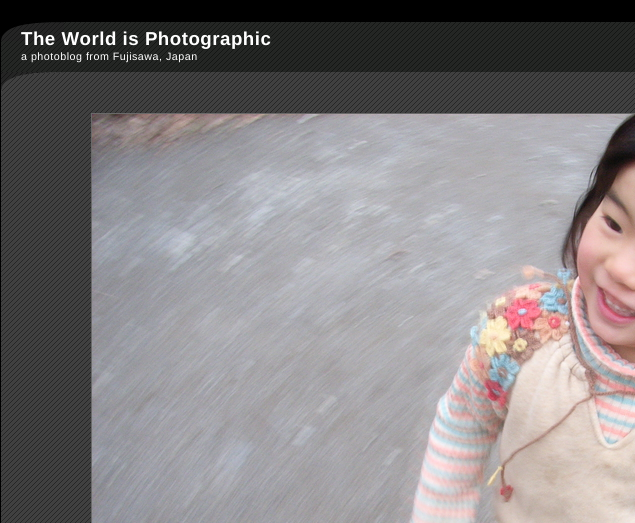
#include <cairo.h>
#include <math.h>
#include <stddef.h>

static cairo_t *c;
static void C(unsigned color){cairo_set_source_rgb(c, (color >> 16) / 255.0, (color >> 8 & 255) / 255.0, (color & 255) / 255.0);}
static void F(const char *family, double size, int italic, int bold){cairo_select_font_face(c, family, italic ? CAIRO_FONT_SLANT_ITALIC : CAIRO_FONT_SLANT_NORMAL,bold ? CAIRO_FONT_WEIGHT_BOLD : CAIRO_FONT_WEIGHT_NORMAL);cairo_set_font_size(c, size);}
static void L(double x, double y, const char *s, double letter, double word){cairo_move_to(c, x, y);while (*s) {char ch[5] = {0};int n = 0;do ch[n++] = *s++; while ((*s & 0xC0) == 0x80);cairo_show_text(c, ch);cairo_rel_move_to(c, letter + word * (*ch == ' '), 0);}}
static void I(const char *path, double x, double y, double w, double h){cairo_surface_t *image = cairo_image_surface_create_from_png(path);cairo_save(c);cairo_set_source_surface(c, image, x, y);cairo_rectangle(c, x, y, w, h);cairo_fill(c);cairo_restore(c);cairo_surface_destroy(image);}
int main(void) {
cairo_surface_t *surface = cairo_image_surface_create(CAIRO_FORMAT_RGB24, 635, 523);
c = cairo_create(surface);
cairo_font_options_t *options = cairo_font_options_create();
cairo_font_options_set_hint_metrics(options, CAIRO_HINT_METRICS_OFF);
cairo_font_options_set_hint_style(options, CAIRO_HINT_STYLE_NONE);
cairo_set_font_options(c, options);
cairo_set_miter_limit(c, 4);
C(0x000000);
cairo_paint(c);
I("1.png",1,72,634,451);
I("2.png",1,22,634,50);
I("3.png",1,22,63,19);
F("Liberation Sans",18.7,0,1);
C(0xffffff);
L(21,45,"The World is Photographic",.5,0);
F("Liberation Sans",10.7,0,0);
L(21,60,"a photoblog from Fujisawa, Japan",.5,0);
I("4.png",1,72,63,20);
cairo_rectangle(c,91.5,113.5,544,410);
C(0x696969);
cairo_set_line_width(c,1);
cairo_stroke(c);
I("5.png",92,114,543,409);
cairo_surface_write_to_png(surface, "o.png");
cairo_font_options_destroy(options);
cairo_destroy(c);
cairo_surface_destroy(surface);
return 0;
}
